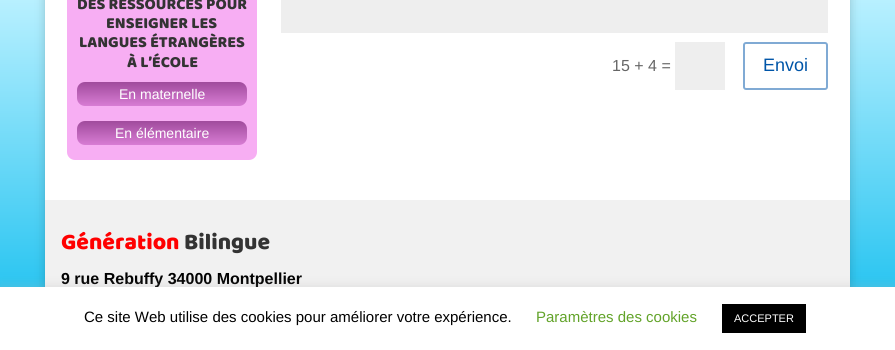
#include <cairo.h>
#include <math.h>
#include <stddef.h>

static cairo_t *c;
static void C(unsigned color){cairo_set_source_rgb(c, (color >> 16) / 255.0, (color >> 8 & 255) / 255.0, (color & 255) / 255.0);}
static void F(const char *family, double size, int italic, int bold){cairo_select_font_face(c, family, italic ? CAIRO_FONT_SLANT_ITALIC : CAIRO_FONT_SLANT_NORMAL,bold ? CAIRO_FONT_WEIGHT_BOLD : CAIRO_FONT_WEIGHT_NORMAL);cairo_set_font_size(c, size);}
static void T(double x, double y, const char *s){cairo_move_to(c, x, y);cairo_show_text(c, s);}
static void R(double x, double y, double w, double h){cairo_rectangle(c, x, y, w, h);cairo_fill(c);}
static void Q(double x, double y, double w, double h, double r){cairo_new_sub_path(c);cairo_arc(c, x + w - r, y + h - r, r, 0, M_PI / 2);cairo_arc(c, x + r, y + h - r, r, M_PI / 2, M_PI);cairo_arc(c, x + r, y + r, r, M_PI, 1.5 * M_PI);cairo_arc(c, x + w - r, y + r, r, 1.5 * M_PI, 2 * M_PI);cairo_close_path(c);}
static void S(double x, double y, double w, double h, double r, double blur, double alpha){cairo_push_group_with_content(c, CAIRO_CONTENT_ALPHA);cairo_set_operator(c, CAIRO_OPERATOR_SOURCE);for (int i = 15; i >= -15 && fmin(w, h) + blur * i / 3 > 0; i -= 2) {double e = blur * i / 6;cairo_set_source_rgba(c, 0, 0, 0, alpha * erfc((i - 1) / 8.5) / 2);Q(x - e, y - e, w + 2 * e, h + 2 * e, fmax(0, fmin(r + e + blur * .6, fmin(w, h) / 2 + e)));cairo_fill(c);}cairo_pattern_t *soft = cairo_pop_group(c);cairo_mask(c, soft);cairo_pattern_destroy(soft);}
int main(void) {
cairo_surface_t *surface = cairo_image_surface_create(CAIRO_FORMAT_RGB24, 895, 350);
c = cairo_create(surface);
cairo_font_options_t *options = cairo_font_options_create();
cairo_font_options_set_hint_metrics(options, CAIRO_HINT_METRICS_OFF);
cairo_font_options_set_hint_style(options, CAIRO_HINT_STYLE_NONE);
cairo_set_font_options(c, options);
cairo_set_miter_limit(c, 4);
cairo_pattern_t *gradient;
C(0xffffff);
cairo_paint(c);
gradient = cairo_pattern_create_linear(0,0,0,350);
cairo_pattern_add_color_stop_rgba(gradient,0,0.722,0.941,1,1);
cairo_pattern_add_color_stop_rgba(gradient,1,0.047,0.737,0.933,1);
cairo_set_source(c,gradient);
cairo_pattern_destroy(gradient);
R(0,0,895,287);
C(0x000000);
S(45,-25,805,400,10,5,.2);
C(0xffffff);
R(45,0,805,200);
C(0xf7aef3);
Q(67,-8,190,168,8);
cairo_fill(c);
F("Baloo",16,0,0);
C(0x333333);
T(77,9,"DES RESSOURCES POUR");
T(106,28,"ENSEIGNER LES");
T(79,47,"LANGUES ÉTRANGÈRES");
T(127,67,"À L’ÉCOLE");
gradient = cairo_pattern_create_linear(162,82,162,106);
cairo_pattern_add_color_stop_rgba(gradient,0,0.627,0.294,0.612,1);
cairo_pattern_add_color_stop_rgba(gradient,1,0.847,0.486,0.831,1);
cairo_set_source(c,gradient);
cairo_pattern_destroy(gradient);
Q(77,82,170,24,8);
cairo_fill(c);
F("Liberation Sans",14,0,0);
C(0xffffff);
T(119,99,"En maternelle");
gradient = cairo_pattern_create_linear(162,121,162,145);
cairo_pattern_add_color_stop_rgba(gradient,0,0.627,0.294,0.612,1);
cairo_pattern_add_color_stop_rgba(gradient,1,0.847,0.486,0.831,1);
cairo_set_source(c,gradient);
cairo_pattern_destroy(gradient);
Q(77,121,170,24,8);
cairo_fill(c);
C(0xffffff);
T(115,138,"En élémentaire");
C(0xeeeeee);
R(281,0,547,33);
F("Liberation Sans",16,0,0);
C(0x666666);
T(612,71,"15 + 4 =");
C(0xeeeeee);
R(675,42,50,48);
Q(744,43,83,46,2);
C(0x80aad4);
cairo_stroke(c);
F("Liberation Sans",18,0,0);
C(0x0055a8);
T(763,71,"Envoi");
C(0xf1f1f1);
R(45,200,805,87);
F("Baloo",23,0,0);
C(0xff0000);
T(61,249,"Génération");
C(0x333333);
T(184,249,"Bilingue");
F("Liberation Sans",16,0,1);
C(0x000000);
T(61,284,"9 rue Rebuffy 34000 Montpellier");
C(0xacabab);
S(0,286,895,63,0,5,.3);
C(0xffffff);
R(0,287,895,63);
F("Liberation Sans",15,0,0);
C(0x000000);
T(84,322,"Ce site Web utilise des cookies pour améliorer votre expérience.");
C(0x62a329);
T(536,322,"Paramètres des cookies");
C(0x000000);
R(722,304,84,29);
F("Liberation Sans",11,0,0);
C(0xffffff);
T(734,322,"ACCEPTER");
cairo_surface_write_to_png(surface, "o.png");
cairo_font_options_destroy(options);
cairo_destroy(c);
cairo_surface_destroy(surface);
return 0;
}
